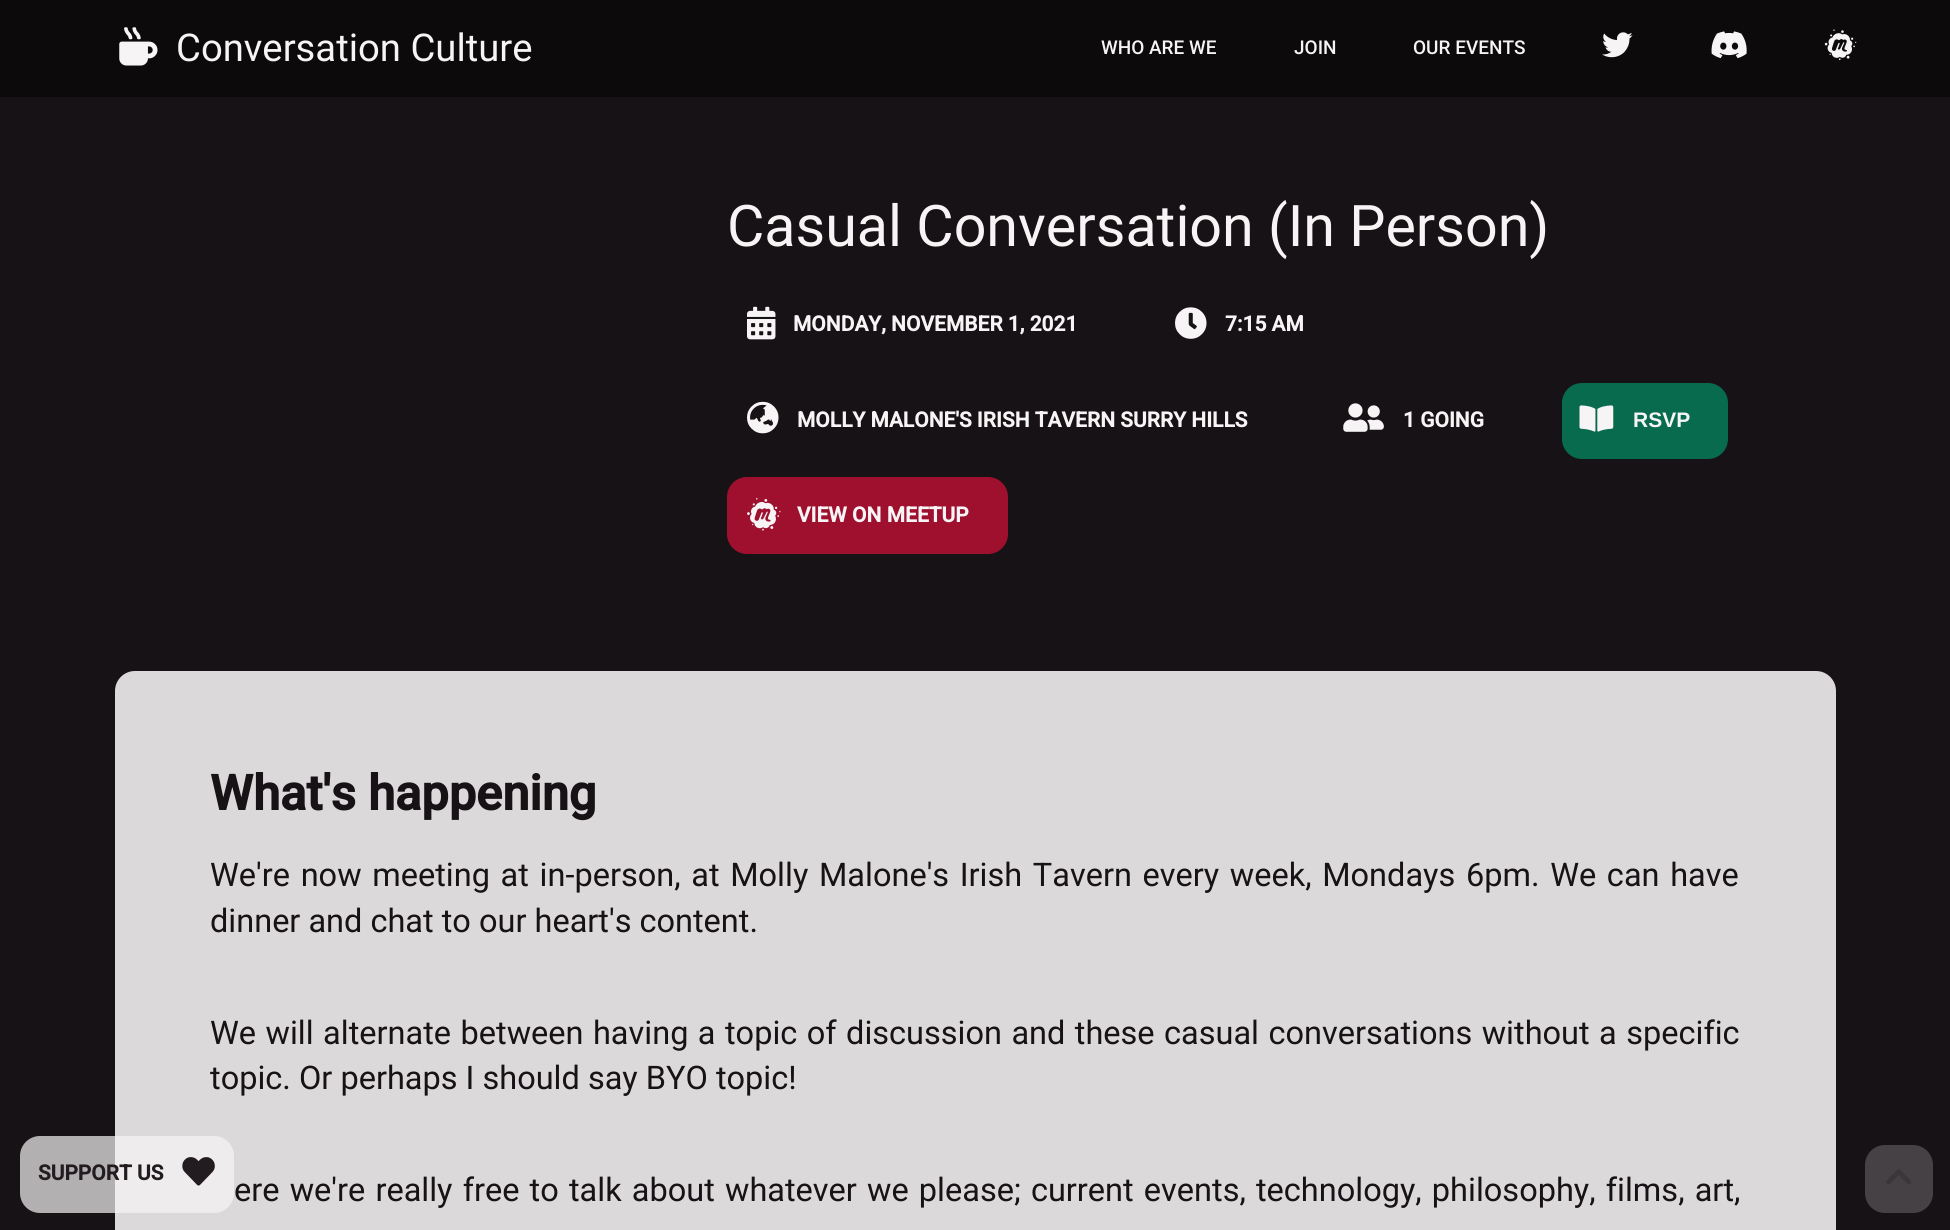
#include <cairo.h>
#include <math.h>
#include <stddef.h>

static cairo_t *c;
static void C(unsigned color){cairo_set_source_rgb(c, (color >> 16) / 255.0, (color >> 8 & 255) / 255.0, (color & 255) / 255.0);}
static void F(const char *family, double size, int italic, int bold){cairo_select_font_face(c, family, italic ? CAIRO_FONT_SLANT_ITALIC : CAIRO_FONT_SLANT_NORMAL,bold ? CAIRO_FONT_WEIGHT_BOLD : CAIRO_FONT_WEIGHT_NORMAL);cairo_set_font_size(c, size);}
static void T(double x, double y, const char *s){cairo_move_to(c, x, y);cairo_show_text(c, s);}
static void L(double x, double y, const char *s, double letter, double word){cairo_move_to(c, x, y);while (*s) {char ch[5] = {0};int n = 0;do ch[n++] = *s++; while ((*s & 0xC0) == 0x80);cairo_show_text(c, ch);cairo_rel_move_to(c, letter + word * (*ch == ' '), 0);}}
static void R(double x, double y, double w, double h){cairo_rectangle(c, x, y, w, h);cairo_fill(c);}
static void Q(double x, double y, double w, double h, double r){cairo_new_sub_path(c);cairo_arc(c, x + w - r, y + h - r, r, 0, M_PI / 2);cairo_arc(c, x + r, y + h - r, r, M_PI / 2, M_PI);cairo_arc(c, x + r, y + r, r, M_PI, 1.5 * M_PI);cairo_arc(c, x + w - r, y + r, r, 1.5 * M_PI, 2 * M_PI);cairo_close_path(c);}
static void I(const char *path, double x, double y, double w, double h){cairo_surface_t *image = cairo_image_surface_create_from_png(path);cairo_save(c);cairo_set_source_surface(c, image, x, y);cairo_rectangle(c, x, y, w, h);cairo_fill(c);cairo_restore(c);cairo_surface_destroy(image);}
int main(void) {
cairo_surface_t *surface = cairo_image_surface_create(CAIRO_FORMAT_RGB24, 1950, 1230);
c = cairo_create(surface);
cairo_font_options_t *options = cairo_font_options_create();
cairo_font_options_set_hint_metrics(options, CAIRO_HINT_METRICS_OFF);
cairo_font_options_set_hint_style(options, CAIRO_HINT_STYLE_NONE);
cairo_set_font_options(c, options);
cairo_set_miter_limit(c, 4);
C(0x171215);
cairo_paint(c);
C(0x0d0a0c);
R(0,0,1950,97);
I("1.png",119,27,39,39);
F("Roboto",38.25,0,0);
C(0xf6f4f5);
T(176,61,"Conversation Culture");
F("Roboto Medium",19,0,0);
T(1101,54,"WHO ARE WE");
T(1294,54,"JOIN");
T(1413,54,"OUR EVENTS");
I("2.png",1602,32,31,26);
I("3.png",1711,31,36,28);
I("4.png",1824,29,33,32);
F("Roboto",57.4,0,0);
T(727,246,"Casual Conversation (In Person)");
I("5.png",747,306,29,34);
F("Roboto",21,0,1);
T(793,331,"MONDAY, NOVEMBER 1, 2021");
I("6.png",1175,307,32,32);
T(1225,331,"7:15 AM");
I("7.png",747,401,32,33);
T(797,427,"MOLLY MALONE'S IRISH TAVERN SURRY HILLS");
I("8.png",1343,403,41,29);
T(1403,427,"1 GOING");
C(0x086b4e);
Q(1562,383,166,76,20);
cairo_fill(c);
I("9.png",1579,405,35,27);
F("Liberation Sans",21,0,1);
C(0xf6f4f5);
T(1633,427,"RSVP");
cairo_set_source_rgba(c,0.851,0.063,0.231,0.7);
Q(727,477,281,77,20);
cairo_fill(c);
I("10.png",747,498,34,33);
F("Roboto",21,0,1);
C(0xf6f4f5);
T(797,522,"VIEW ON MEETUP");
cairo_set_source_rgba(c,0.965,0.957,0.961,0.88);
Q(115,671,1721,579,20);
cairo_fill(c);
cairo_set_source_rgba(c,0.965,0.957,0.961,0.7);
Q(20,1136,214,77,20);
cairo_fill(c);
C(0x221b1f);
T(38,1180,"SUPPORT US");
I("11.png",182,1157,33,29);
F("Roboto",48.75,0,1);
C(0x171215);
T(210,810,"What's happening");
F("Roboto",32.5,0,0);
L(210,886,"We're now meeting at in-person, at Molly Malone's Irish Tavern every week, Mondays 6pm. We can have",0,2.6);
T(210,932,"dinner and chat to our heart's content.");
L(210,1044,"We will alternate between having a topic of discussion and these casual conversations without a specific",0,1.4);
T(210,1089,"topic. Or perhaps I should say BYO topic!");
L(234,1201,"ere we're really free to talk about whatever we please; current events, technology, philosophy, films, art,",0,2.1);
C(0x454144);
Q(1865,1145,68,68,20);
cairo_fill(c);
I("12.png",1886,1169,25,16);
cairo_surface_write_to_png(surface, "o.png");
cairo_font_options_destroy(options);
cairo_destroy(c);
cairo_surface_destroy(surface);
return 0;
}
